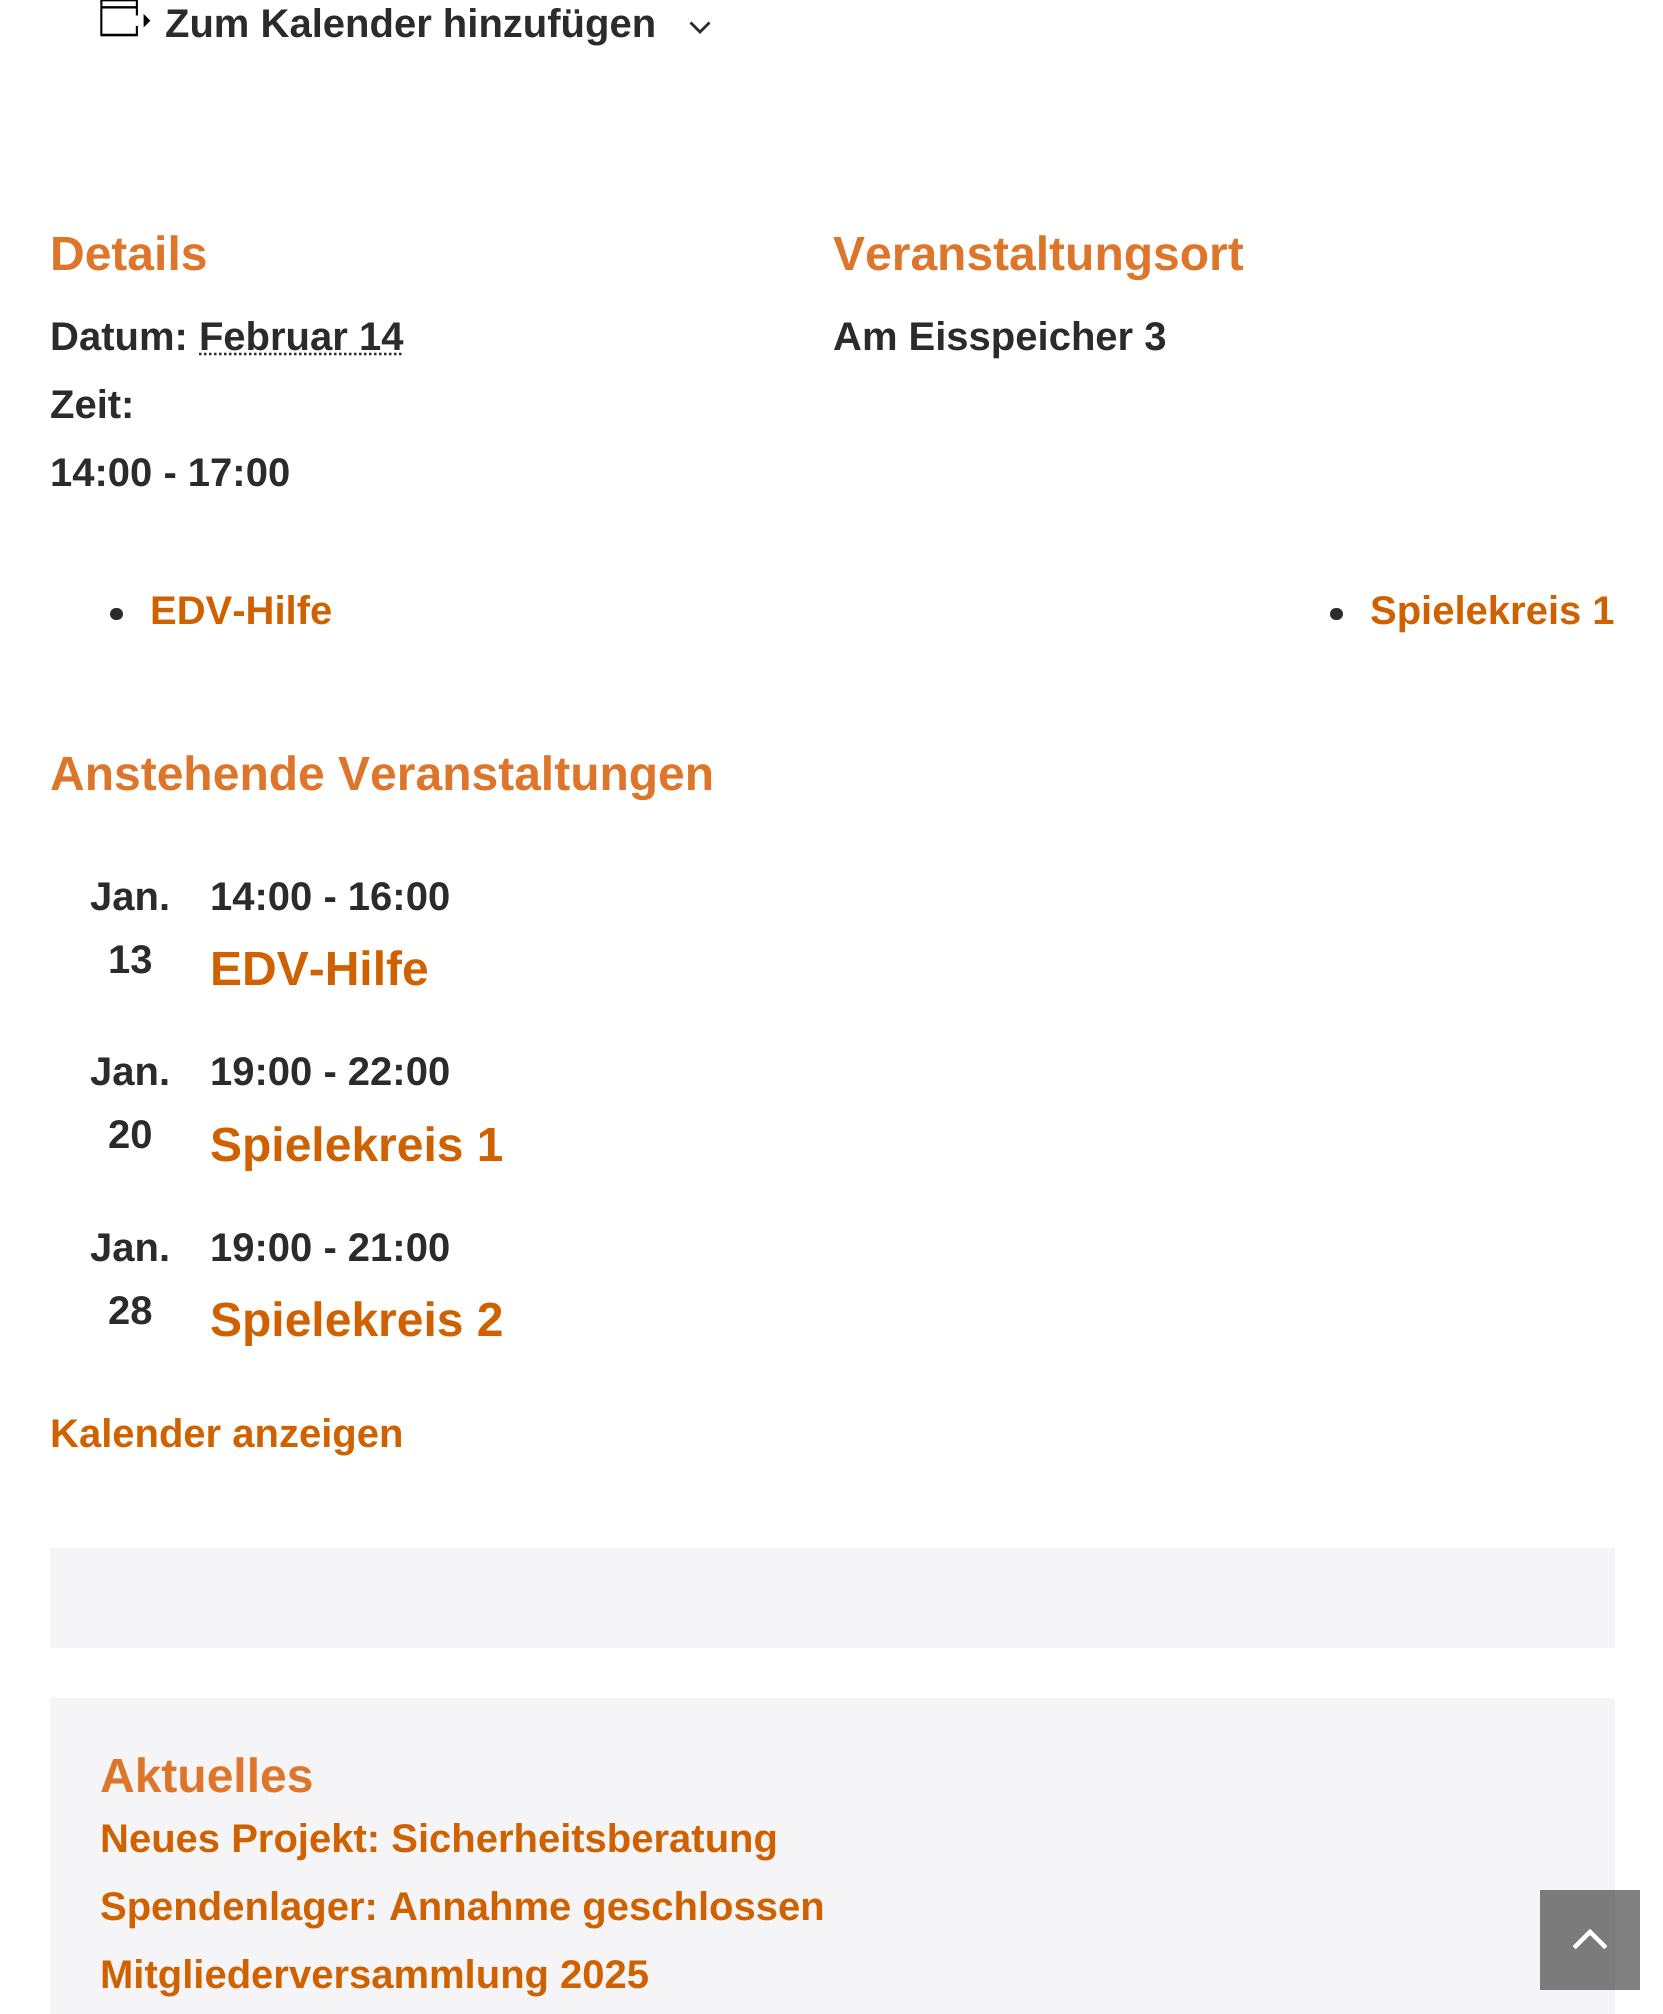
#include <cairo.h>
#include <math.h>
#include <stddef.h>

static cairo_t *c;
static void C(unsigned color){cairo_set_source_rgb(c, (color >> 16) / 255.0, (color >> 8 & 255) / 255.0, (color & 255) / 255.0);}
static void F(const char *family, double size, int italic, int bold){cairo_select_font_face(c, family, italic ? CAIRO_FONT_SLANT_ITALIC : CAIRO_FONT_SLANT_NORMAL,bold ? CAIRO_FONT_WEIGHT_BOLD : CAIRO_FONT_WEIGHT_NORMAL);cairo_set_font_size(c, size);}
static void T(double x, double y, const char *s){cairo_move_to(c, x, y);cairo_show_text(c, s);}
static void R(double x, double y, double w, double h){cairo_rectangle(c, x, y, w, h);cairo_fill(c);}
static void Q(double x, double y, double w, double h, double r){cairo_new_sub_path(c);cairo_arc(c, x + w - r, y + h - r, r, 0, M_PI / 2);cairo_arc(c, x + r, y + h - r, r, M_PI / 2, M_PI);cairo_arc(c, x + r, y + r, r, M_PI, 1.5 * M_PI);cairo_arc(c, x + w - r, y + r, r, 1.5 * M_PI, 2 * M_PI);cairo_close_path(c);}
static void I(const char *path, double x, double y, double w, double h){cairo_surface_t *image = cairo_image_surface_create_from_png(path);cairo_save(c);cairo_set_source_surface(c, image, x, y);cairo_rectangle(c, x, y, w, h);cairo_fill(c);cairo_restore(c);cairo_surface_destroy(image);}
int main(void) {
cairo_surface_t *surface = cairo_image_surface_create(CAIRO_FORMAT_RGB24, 1663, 2014);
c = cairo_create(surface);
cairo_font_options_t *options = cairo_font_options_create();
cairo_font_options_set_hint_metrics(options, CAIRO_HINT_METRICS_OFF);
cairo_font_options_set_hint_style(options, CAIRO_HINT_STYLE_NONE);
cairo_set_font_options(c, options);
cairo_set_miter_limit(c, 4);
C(0xffffff);
cairo_paint(c);
C(0x808080);
R(1615,1890,25,100);
I("1.png",100,0,51,37);
F("Liberation Sans",40,0,1);
C(0x2b2b2b);
T(165,37,"Zum Kalender hinzufügen");
cairo_set_fill_rule(c,CAIRO_FILL_RULE_EVEN_ODD);
cairo_new_path(c);
cairo_move_to(c,691.5,21.5);
cairo_line_to(c,700,30);
cairo_line_to(c,708.5,21.5);
cairo_line_to(c,710.5,23.5);
cairo_line_to(c,700,34);
cairo_line_to(c,689.5,23.5);
cairo_close_path(c);
cairo_fill(c);
F("Liberation Sans",48,0,1);
C(0xdd762a);
T(50,270,"Details");
F("Liberation Sans",40,0,1);
C(0x2b2b2b);
T(50,350,"Datum: Februar 14");
cairo_new_path(c);
cairo_move_to(c,199,354);
cairo_line_to(c,403.5,354);
cairo_set_line_width(c,2.5);
cairo_set_dash(c,(double[]){2.5,2.5},2,0);
cairo_stroke(c);
T(50,418,"Zeit:");
T(50,486,"14:00 - 17:00");
F("Liberation Sans",48,0,1);
C(0xdd762a);
T(833,270,"Veranstaltungsort");
F("Liberation Sans",40,0,1);
C(0x2b2b2b);
T(833,350,"Am Eisspeicher 3");
Q(110,608,13,12,6);
cairo_fill(c);
C(0xcf6100);
T(150,624,"EDV-Hilfe");
C(0x2b2b2b);
Q(1330,608,13,12,6);
cairo_fill(c);
C(0xcf6100);
T(1370,624,"Spielekreis 1");
F("Liberation Sans",48,0,1);
C(0xdd762a);
T(50,790,"Anstehende Veranstaltungen");
F("Liberation Sans",40,0,1);
C(0x2b2b2b);
T(90,910,"Jan.");
T(108,973,"13");
T(210,910,"14:00 - 16:00");
F("Liberation Sans",48,0,1);
C(0xcf6100);
T(210,985,"EDV-Hilfe");
F("Liberation Sans",40,0,1);
C(0x2b2b2b);
T(90,1085,"Jan.");
T(108,1148,"20");
T(210,1085,"19:00 - 22:00");
F("Liberation Sans",48,0,1);
C(0xcf6100);
T(210,1161,"Spielekreis 1");
F("Liberation Sans",40,0,1);
C(0x2b2b2b);
T(90,1261,"Jan.");
T(108,1324,"28");
T(210,1261,"19:00 - 21:00");
F("Liberation Sans",48,0,1);
C(0xcf6100);
T(210,1336,"Spielekreis 2");
F("Liberation Sans",40,0,1);
T(50,1447,"Kalender anzeigen");
C(0xf5f5f7);
R(50,1548,1565,100);
R(50,1698,1565,316);
C(0x7b7b7c);
R(1540,1890,75,100);
F("Liberation Sans",48,0,1);
C(0xdd762a);
T(100,1792,"Aktuelles");
F("Liberation Sans",40,0,1);
C(0xcf6100);
T(100,1852,"Neues Projekt: Sicherheitsberatung");
T(100,1920,"Spendenlager: Annahme geschlossen");
T(100,1988,"Mitgliederversammlung 2025");
I("2.png",1573,1929,34,20);
cairo_surface_write_to_png(surface, "o.png");
cairo_font_options_destroy(options);
cairo_destroy(c);
cairo_surface_destroy(surface);
return 0;
}
